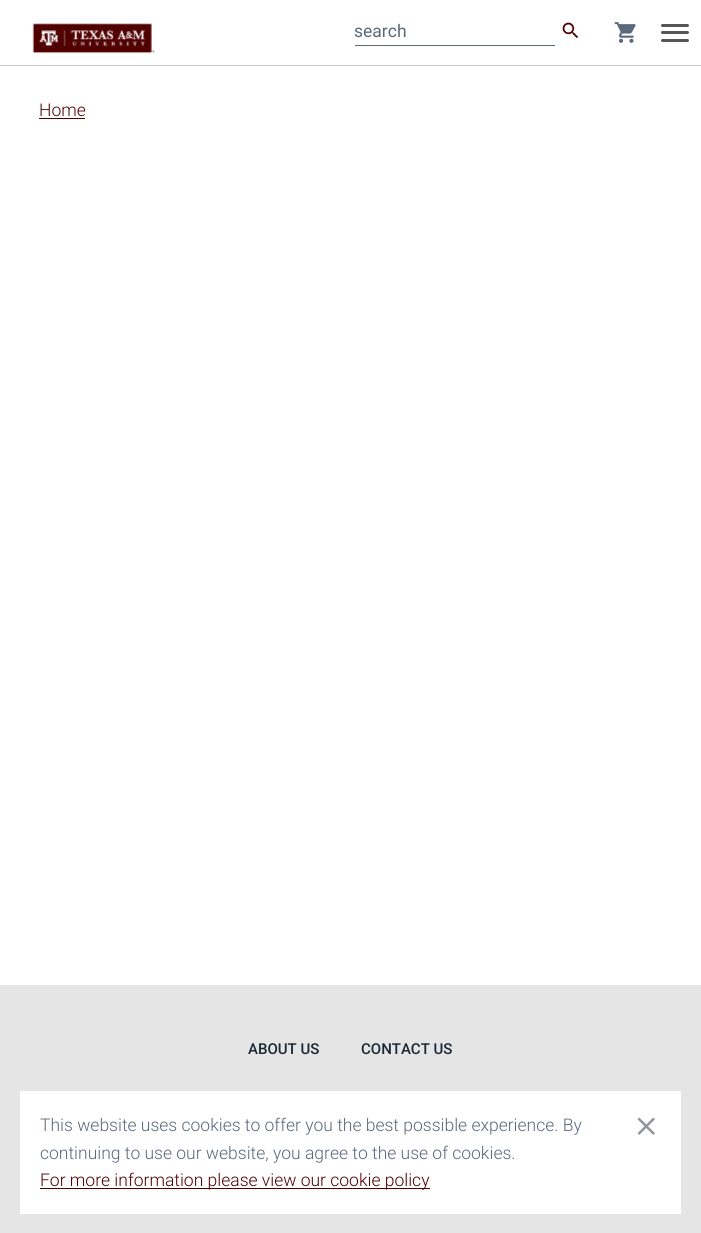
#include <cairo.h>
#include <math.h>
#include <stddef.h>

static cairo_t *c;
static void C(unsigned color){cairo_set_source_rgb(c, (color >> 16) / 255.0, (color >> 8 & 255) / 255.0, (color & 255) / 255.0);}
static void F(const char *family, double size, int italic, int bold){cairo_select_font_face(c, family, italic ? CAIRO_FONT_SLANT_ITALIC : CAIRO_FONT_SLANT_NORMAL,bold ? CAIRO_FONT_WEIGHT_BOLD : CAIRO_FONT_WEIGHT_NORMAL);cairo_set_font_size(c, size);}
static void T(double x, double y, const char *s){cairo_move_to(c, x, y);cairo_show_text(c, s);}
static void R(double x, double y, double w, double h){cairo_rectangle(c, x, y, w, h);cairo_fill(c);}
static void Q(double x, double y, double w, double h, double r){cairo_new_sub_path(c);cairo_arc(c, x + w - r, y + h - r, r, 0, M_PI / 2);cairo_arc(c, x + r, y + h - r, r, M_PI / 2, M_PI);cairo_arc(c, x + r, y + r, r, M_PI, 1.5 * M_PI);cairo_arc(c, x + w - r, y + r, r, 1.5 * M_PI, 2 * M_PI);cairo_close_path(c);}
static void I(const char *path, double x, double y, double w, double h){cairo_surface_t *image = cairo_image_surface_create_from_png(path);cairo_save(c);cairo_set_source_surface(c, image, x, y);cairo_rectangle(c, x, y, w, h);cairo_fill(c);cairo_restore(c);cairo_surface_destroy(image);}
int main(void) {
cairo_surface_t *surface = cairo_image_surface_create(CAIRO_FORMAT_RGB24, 701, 1233);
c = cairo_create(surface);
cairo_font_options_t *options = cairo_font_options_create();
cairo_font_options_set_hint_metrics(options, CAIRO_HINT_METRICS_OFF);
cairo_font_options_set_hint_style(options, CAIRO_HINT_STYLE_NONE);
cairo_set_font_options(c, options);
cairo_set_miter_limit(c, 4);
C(0xe5e5e5);
cairo_paint(c);
C(0xffffff);
R(0,0,701,65);
C(0xcccccc);
R(0,65,701,1);
I("1.png",32,23,123,31);
C(0x5a687b);
R(355,45,200,1);
F("Roboto",17.5,0,0);
T(354,37,"search");
I("2.png",562,22,16,16);
I("3.png",614,22,22,21);
C(0x555555);
Q(661,24,28,3,1.5);
cairo_fill(c);
Q(661,31,28,3,1.5);
cairo_fill(c);
Q(661,39,28,3,1.5);
cairo_fill(c);
C(0xffffff);
R(0,66,701,919);
F("Roboto Light",17.5,0,0);
C(0x500000);
T(39,116,"Home");
R(39,118,46,1);
F("Roboto Medium",15,0,0);
C(0x1b2733);
T(248,1054,"ABOUT US");
T(361,1054,"CONTACT US");
C(0xffffff);
R(20,1091,661,123);
F("Roboto Light",17.5,0,0);
C(0x5a687b);
T(40,1131,"This website uses cookies to offer you the best possible experience. By");
T(40,1159,"continuing to use our website, you agree to the use of cookies.");
C(0x500000);
R(40,1188,390,1);
T(40,1186,"For more information please view our cookie policy");
I("4.png",637,1117,18,18);
cairo_surface_write_to_png(surface, "o.png");
cairo_font_options_destroy(options);
cairo_destroy(c);
cairo_surface_destroy(surface);
return 0;
}
